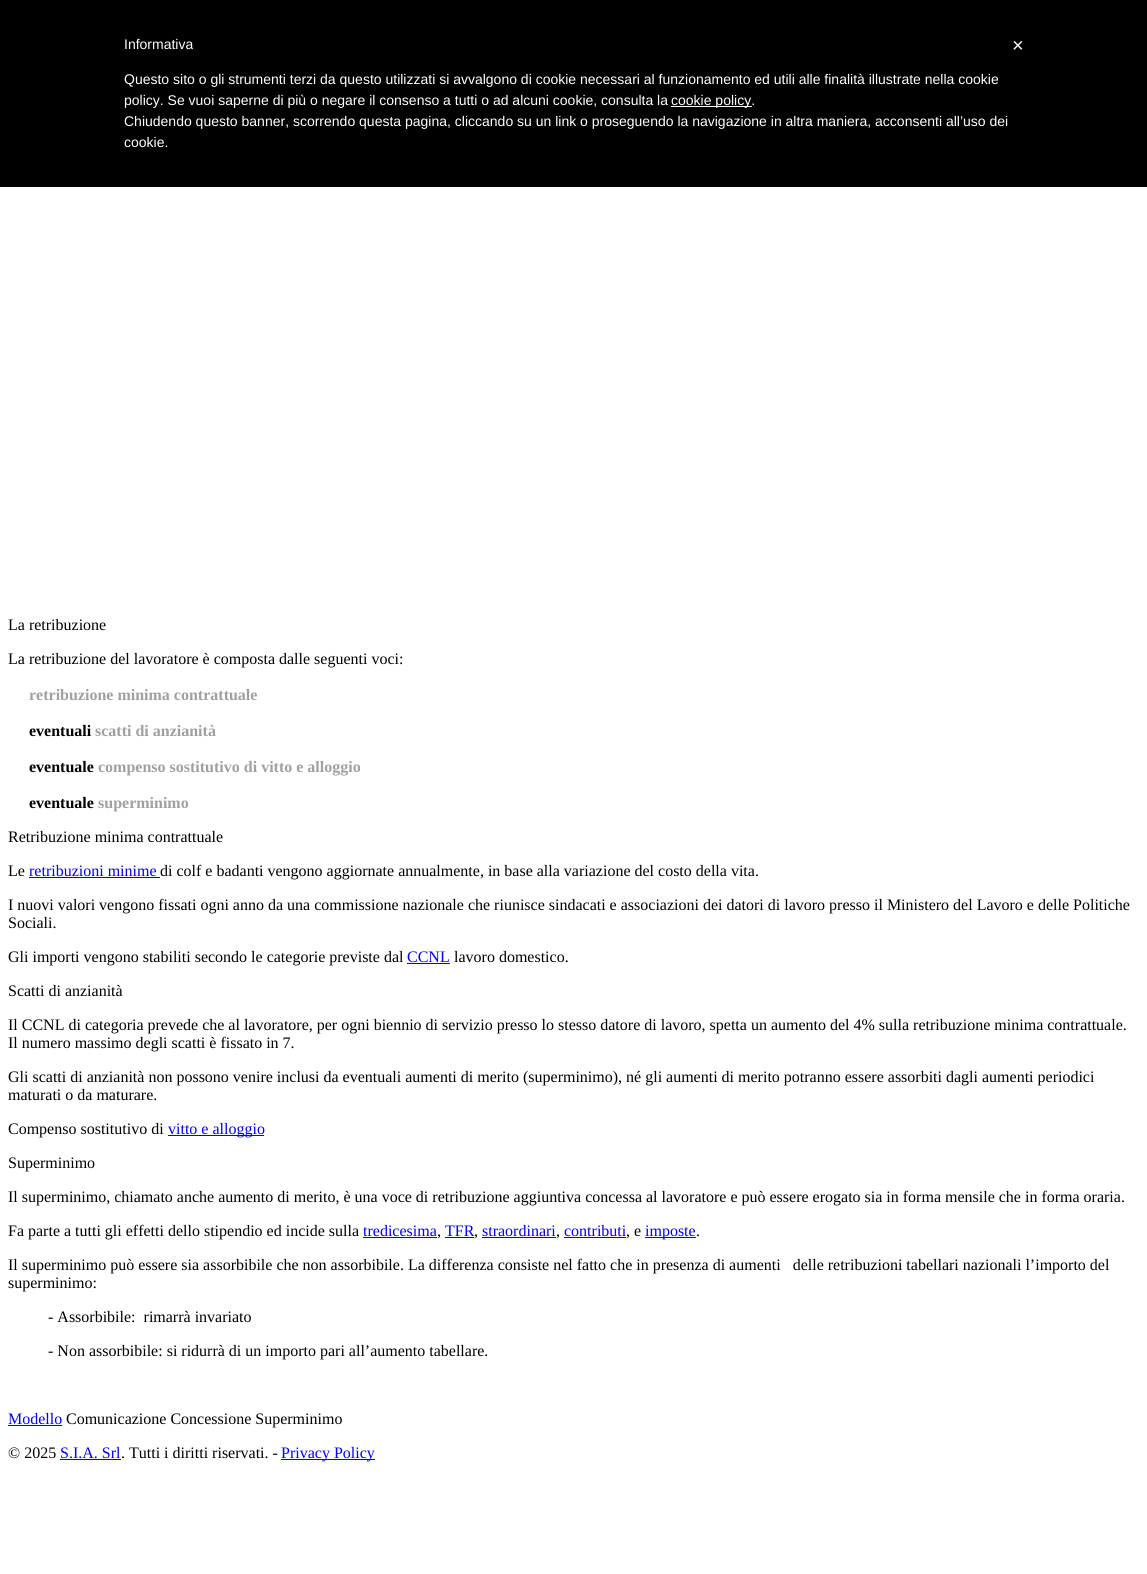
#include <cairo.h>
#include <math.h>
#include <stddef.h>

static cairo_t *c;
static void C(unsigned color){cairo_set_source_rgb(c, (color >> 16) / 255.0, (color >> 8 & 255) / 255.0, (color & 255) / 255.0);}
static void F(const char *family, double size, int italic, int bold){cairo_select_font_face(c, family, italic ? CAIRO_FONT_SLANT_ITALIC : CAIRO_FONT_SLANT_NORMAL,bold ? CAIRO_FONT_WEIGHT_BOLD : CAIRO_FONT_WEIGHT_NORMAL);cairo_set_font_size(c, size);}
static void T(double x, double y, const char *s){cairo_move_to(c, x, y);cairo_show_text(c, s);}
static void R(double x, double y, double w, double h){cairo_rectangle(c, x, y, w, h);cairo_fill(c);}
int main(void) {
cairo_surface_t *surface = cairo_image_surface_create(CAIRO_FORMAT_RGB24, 1147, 1574);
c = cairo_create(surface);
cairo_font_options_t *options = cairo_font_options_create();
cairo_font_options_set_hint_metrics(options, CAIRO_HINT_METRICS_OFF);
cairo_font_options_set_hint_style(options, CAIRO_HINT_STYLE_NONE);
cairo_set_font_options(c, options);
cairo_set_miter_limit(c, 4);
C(0xffffff);
cairo_paint(c);
C(0x000000);
R(0,0,1147,187);
F("Liberation Sans",14,0,0);
C(0xffffff);
T(124,49,"Informativa");
T(124,84,"Questo sito o gli strumenti terzi da questo utilizzati si avvalgono di cookie necessari al funzionamento ed utili alle finalità illustrate nella cookie");
T(124,105,"policy. Se vuoi saperne di più o negare il consenso a tutti o ad alcuni cookie, consulta la");
R(671,106,81,1);
T(671,105,"cookie policy.");
T(124,126,"Chiudendo questo banner, scorrendo questa pagina, cliccando su un link o proseguendo la navigazione in altra maniera, acconsenti all’uso dei");
T(124,147,"cookie.");
F("Liberation Sans",20,0,0);
T(1012,52,"×");
F("Liberation Serif",16,0,0);
C(0x000000);
T(8,630,"La retribuzione");
T(8,664,"La retribuzione del lavoratore è composta dalle seguenti voci:");
F("Liberation Serif",16,0,1);
C(0xa0a0a0);
T(29,700,"retribuzione minima contrattuale");
C(0x000000);
T(29,736,"eventuali");
C(0xa0a0a0);
T(95,736,"scatti di anzianità");
C(0x000000);
T(29,772,"eventuale");
C(0xa0a0a0);
T(98,772,"compenso sostitutivo di vitto e alloggio");
C(0x000000);
T(29,808,"eventuale");
C(0xa0a0a0);
T(98,808,"superminimo");
F("Liberation Serif",16,0,0);
C(0x000000);
T(8,842,"Retribuzione minima contrattuale");
T(8,876,"Le");
C(0x0000ee);
T(29,876,"retribuzioni minime");
R(29,877,131,1);
C(0x000000);
T(160,876,"di colf e badanti vengono aggiornate annualmente, in base alla variazione del costo della vita.");
T(8,910,"I nuovi valori vengono fissati ogni anno da una commissione nazionale che riunisce sindacati e associazioni dei datori di lavoro presso il Ministero del Lavoro e delle Politiche");
T(8,928,"Sociali.");
T(8,962,"Gli importi vengono stabiliti secondo le categorie previste dal");
C(0x0000ee);
T(407,962,"CCNL");
R(407,963,43,1);
C(0x000000);
T(454,962,"lavoro domestico.");
T(8,996,"Scatti di anzianità");
T(8,1030,"Il CCNL di categoria prevede che al lavoratore, per ogni biennio di servizio presso lo stesso datore di lavoro, spetta un aumento del 4% sulla retribuzione minima contrattuale.");
T(8,1048,"Il numero massimo degli scatti è fissato in 7.");
T(8,1082,"Gli scatti di anzianità non possono venire inclusi da eventuali aumenti di merito (superminimo), né gli aumenti di merito potranno essere assorbiti dagli aumenti periodici");
T(8,1100,"maturati o da maturare.");
T(8,1134,"Compenso sostitutivo di");
C(0x0000ee);
R(168,1135,96,1);
T(168,1134,"vitto e alloggio");
C(0x000000);
T(8,1168,"Superminimo");
T(8,1202,"Il superminimo, chiamato anche aumento di merito, è una voce di retribuzione aggiuntiva concessa al lavoratore e può essere erogato sia in forma mensile che in forma oraria.");
T(8,1236,"Fa parte a tutti gli effetti dello stipendio ed incide sulla");
C(0x0000ee);
T(363,1236,"tredicesima");
R(363,1237,74,1);
C(0x000000);
T(437,1236,",");
C(0x0000ee);
T(445,1236,"TFR");
R(445,1237,29,1);
C(0x000000);
T(474,1236,",");
C(0x0000ee);
T(482,1236,"straordinari");
R(482,1237,74,1);
C(0x000000);
T(556,1236,",");
C(0x0000ee);
T(564,1236,"contributi");
R(564,1237,62,1);
C(0x000000);
T(626,1236,", e");
C(0x0000ee);
R(645,1237,51,1);
T(645,1236,"imposte");
C(0x000000);
T(696,1236,".");
T(8,1270,"Il superminimo può essere sia assorbibile che non assorbibile. La differenza consiste nel fatto che in presenza di aumenti   delle retribuzioni tabellari nazionali l’importo del");
T(8,1288,"superminimo:");
T(48,1322,"- Assorbibile:  rimarrà invariato");
T(48,1356,"- Non assorbibile: si ridurrà di un importo pari all’aumento tabellare.");
C(0x0000ee);
T(8,1424,"Modello");
R(8,1425,54,1);
C(0x000000);
T(66,1424,"Comunicazione Concessione Superminimo");
T(8,1458,"© 2025");
C(0x0000ee);
T(60,1458,"S.I.A. Srl");
R(60,1459,61,1);
C(0x000000);
T(121,1458,". Tutti i diritti riservati. -");
C(0x0000ee);
R(281,1459,94,1);
T(281,1458,"Privacy Policy");
cairo_surface_write_to_png(surface, "o.png");
cairo_font_options_destroy(options);
cairo_destroy(c);
cairo_surface_destroy(surface);
return 0;
}
